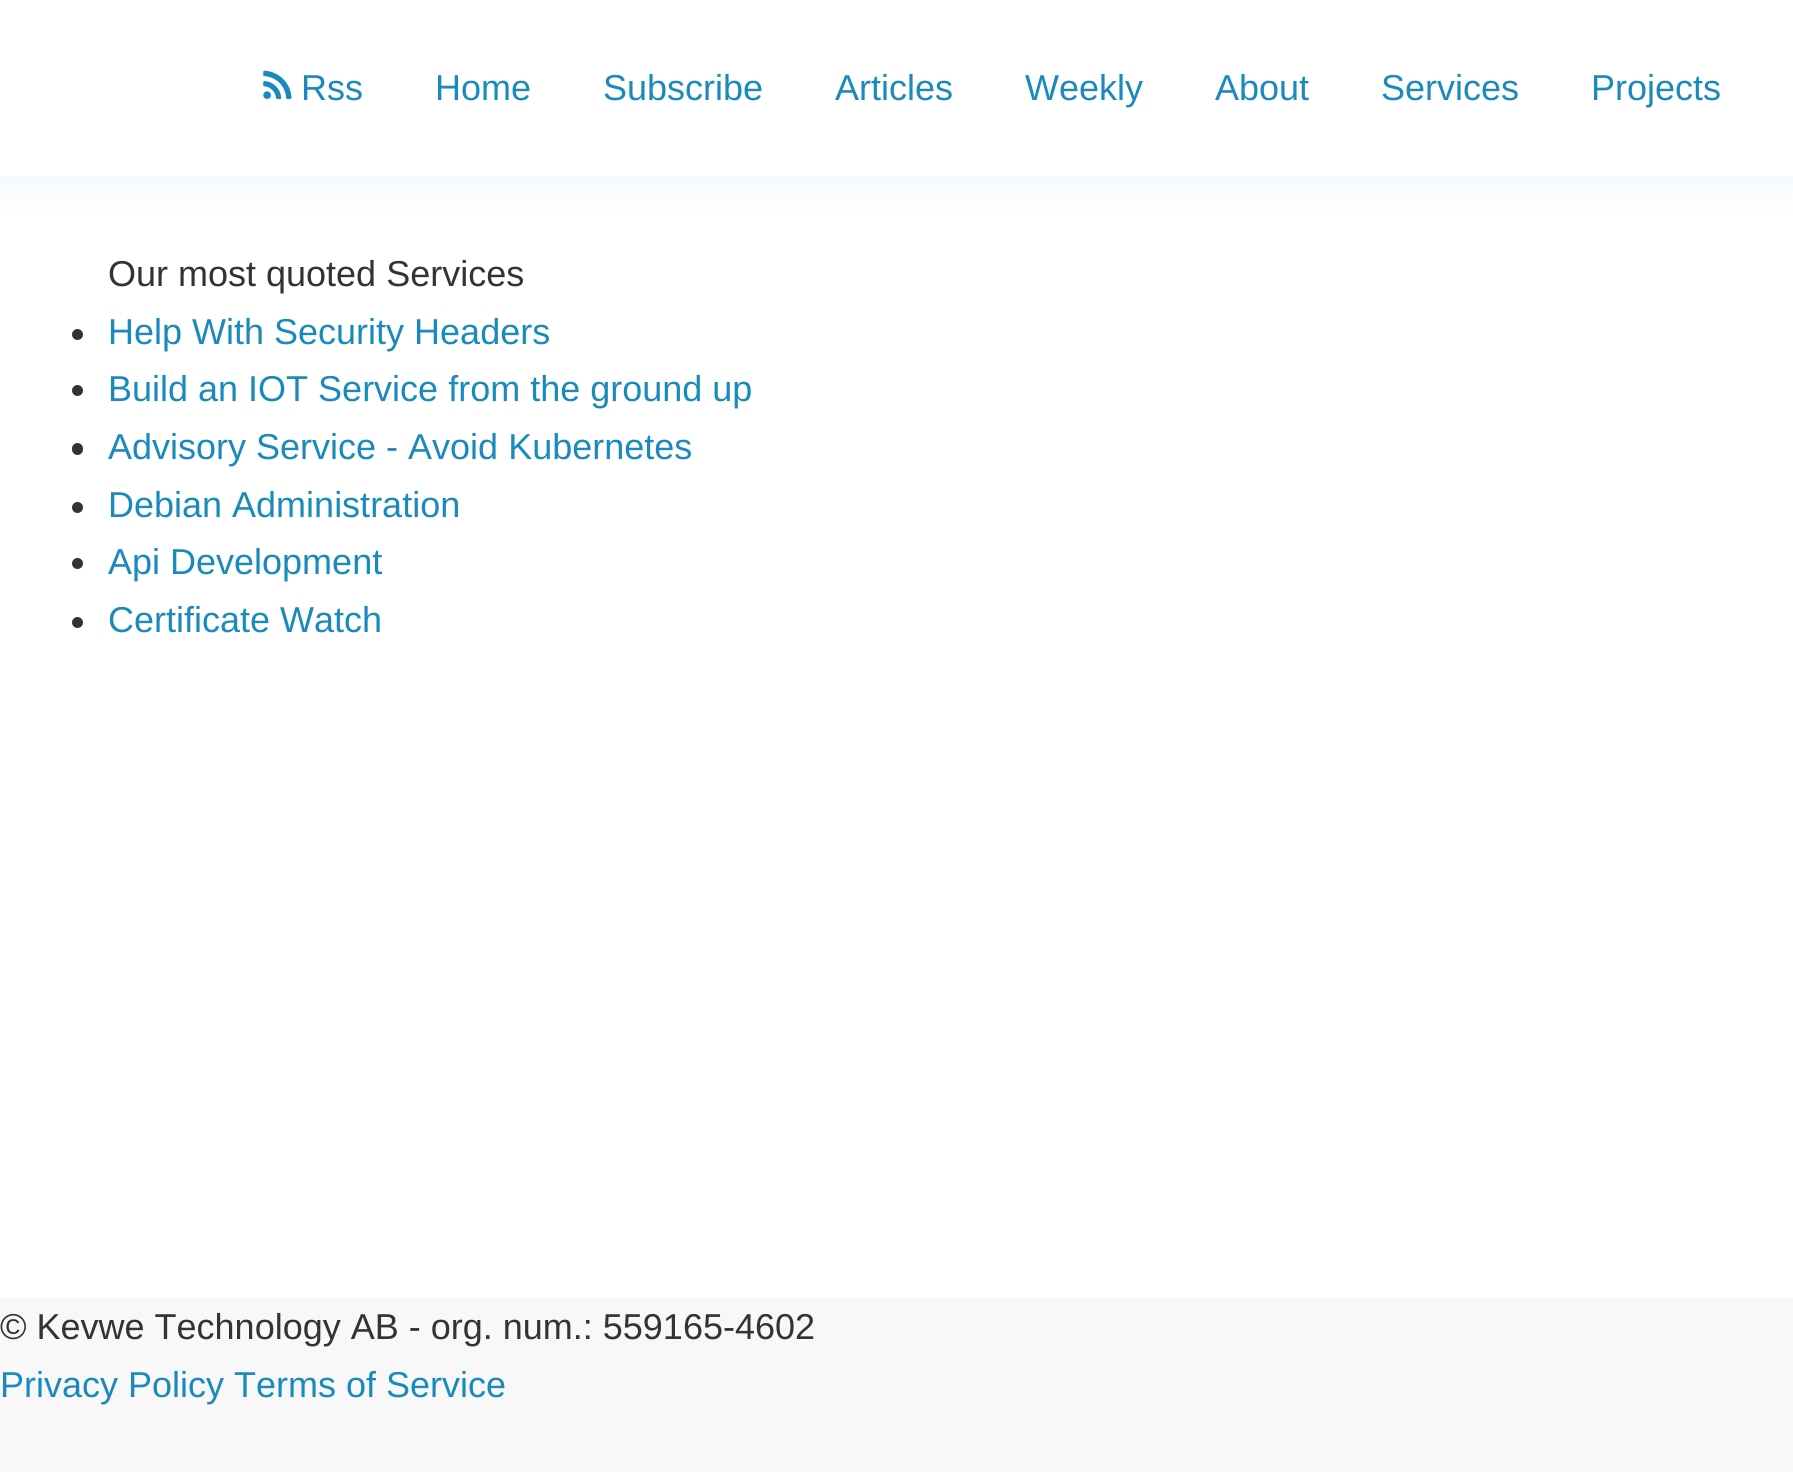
#include <cairo.h>
#include <math.h>
#include <stddef.h>

static cairo_t *c;
static void C(unsigned color){cairo_set_source_rgb(c, (color >> 16) / 255.0, (color >> 8 & 255) / 255.0, (color & 255) / 255.0);}
static void F(const char *family, double size, int italic, int bold){cairo_select_font_face(c, family, italic ? CAIRO_FONT_SLANT_ITALIC : CAIRO_FONT_SLANT_NORMAL,bold ? CAIRO_FONT_WEIGHT_BOLD : CAIRO_FONT_WEIGHT_NORMAL);cairo_set_font_size(c, size);}
static void T(double x, double y, const char *s){cairo_move_to(c, x, y);cairo_show_text(c, s);}
static void R(double x, double y, double w, double h){cairo_rectangle(c, x, y, w, h);cairo_fill(c);}
static void Q(double x, double y, double w, double h, double r){cairo_new_sub_path(c);cairo_arc(c, x + w - r, y + h - r, r, 0, M_PI / 2);cairo_arc(c, x + r, y + h - r, r, M_PI / 2, M_PI);cairo_arc(c, x + r, y + r, r, M_PI, 1.5 * M_PI);cairo_arc(c, x + w - r, y + r, r, 1.5 * M_PI, 2 * M_PI);cairo_close_path(c);}
static void S(double x, double y, double w, double h, double r, double blur, double alpha){cairo_push_group_with_content(c, CAIRO_CONTENT_ALPHA);cairo_set_operator(c, CAIRO_OPERATOR_SOURCE);for (int i = 15; i >= -15 && fmin(w, h) + blur * i / 3 > 0; i -= 2) {double e = blur * i / 6;cairo_set_source_rgba(c, 0, 0, 0, alpha * erfc((i - 1) / 8.5) / 2);Q(x - e, y - e, w + 2 * e, h + 2 * e, fmax(0, fmin(r + e + blur * .6, fmin(w, h) / 2 + e)));cairo_fill(c);}cairo_pattern_t *soft = cairo_pop_group(c);cairo_mask(c, soft);cairo_pattern_destroy(soft);}
static void I(const char *path, double x, double y, double w, double h){cairo_surface_t *image = cairo_image_surface_create_from_png(path);cairo_save(c);cairo_set_source_surface(c, image, x, y);cairo_rectangle(c, x, y, w, h);cairo_fill(c);cairo_restore(c);cairo_surface_destroy(image);}
int main(void) {
cairo_surface_t *surface = cairo_image_surface_create(CAIRO_FORMAT_RGB24, 1793, 1473);
c = cairo_create(surface);
cairo_font_options_t *options = cairo_font_options_create();
cairo_font_options_set_hint_metrics(options, CAIRO_HINT_METRICS_OFF);
cairo_font_options_set_hint_style(options, CAIRO_HINT_STYLE_NONE);
cairo_set_font_options(c, options);
cairo_set_miter_limit(c, 4);
C(0xffffff);
cairo_paint(c);
C(0x1a8abd);
S(0,5,1793,175,0,22.5,.1);
C(0xffffff);
R(0,0,1793,176);
I("1.png",263,70,29,29);
F("Liberation Sans",36,0,0);
C(0x1a8abd);
T(301,100,"Rss");
T(435,100,"Home");
T(603,100,"Subscribe");
T(835,100,"Articles");
T(1025,100,"Weekly");
T(1215,100,"About");
T(1381,100,"Services");
T(1591,100,"Projects");
C(0x333333);
T(108,286,"Our most quoted Services");
cairo_new_path(c);
cairo_arc(c,77.5,334.5,5.5,0,2 * M_PI);
cairo_fill(c);
C(0x1a8abd);
T(108,344,"Help With Security Headers");
C(0x333333);
cairo_new_path(c);
cairo_arc(c,77.5,390.5,5.5,0,2 * M_PI);
cairo_fill(c);
C(0x1a8abd);
T(108,401,"Build an IOT Service from the ground up");
C(0x333333);
Q(72,443,11,12,5.5);
cairo_fill(c);
C(0x1a8abd);
T(108,459,"Advisory Service - Avoid Kubernetes");
C(0x333333);
cairo_new_path(c);
cairo_arc(c,77.5,507.5,5.5,0,2 * M_PI);
cairo_fill(c);
C(0x1a8abd);
T(108,517,"Debian Administration");
C(0x333333);
cairo_new_path(c);
cairo_arc(c,77.5,563.5,5.5,0,2 * M_PI);
cairo_fill(c);
C(0x1a8abd);
T(108,574,"Api Development");
C(0x333333);
cairo_new_path(c);
cairo_arc(c,77.5,622.5,5.5,0,2 * M_PI);
cairo_fill(c);
C(0x1a8abd);
T(108,632,"Certificate Watch");
C(0xf8f8f8);
R(0,1298,1793,174);
C(0x333333);
T(0,1339,"© Kevwe Technology AB - org. num.: 559165-4602");
C(0x1a8abd);
T(0,1397,"Privacy Policy Terms of Service");
cairo_surface_write_to_png(surface, "o.png");
cairo_font_options_destroy(options);
cairo_destroy(c);
cairo_surface_destroy(surface);
return 0;
}
